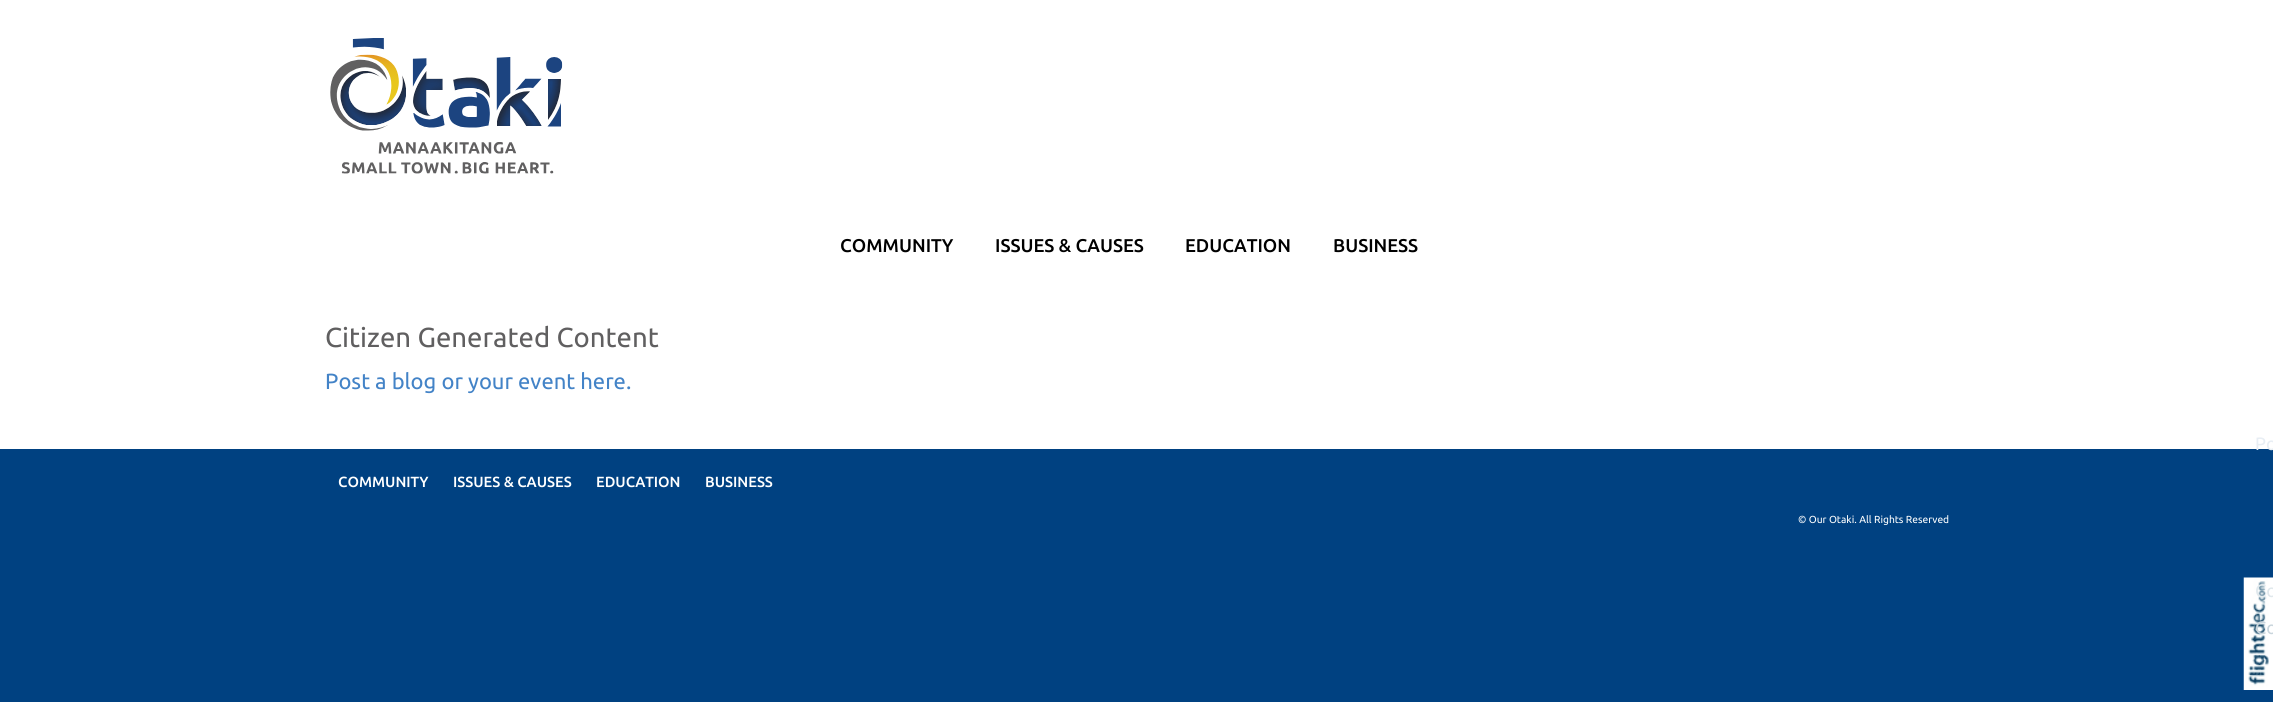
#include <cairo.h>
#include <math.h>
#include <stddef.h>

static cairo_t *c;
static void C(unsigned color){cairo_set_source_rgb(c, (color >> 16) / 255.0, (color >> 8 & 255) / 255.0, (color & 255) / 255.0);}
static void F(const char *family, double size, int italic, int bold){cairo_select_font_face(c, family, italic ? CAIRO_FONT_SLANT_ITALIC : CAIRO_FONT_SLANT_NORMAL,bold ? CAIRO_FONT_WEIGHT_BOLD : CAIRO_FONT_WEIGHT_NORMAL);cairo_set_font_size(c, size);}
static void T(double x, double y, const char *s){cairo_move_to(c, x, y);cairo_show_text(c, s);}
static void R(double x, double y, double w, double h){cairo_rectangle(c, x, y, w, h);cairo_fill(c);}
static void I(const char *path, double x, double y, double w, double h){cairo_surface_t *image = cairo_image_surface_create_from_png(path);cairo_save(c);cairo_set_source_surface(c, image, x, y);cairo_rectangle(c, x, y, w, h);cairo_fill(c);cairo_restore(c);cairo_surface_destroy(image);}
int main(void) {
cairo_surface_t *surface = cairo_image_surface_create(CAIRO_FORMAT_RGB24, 2273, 702);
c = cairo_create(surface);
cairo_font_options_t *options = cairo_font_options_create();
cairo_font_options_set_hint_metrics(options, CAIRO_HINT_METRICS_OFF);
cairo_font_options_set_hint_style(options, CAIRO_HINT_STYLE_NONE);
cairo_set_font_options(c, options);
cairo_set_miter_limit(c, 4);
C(0xffffff);
cairo_paint(c);
I("1.png",330,38,233,136);
F("Ubuntu Medium",18.5,0,0);
C(0x000000);
T(840,252,"COMMUNITY");
T(995,252,"ISSUES & CAUSES");
T(1185,252,"EDUCATION");
T(1333,252,"BUSINESS");
F("Ubuntu",27.5,0,0);
C(0x605f60);
T(325,347,"Citizen Generated Content");
F("Ubuntu",22,0,0);
C(0x4383c7);
T(325,389,"Post a blog or your event here.");
C(0x004181);
R(0,449,2273,253);
F("Ubuntu Medium",14.75,0,0);
C(0xffffff);
T(338,487,"COMMUNITY");
T(453,487,"ISSUES & CAUSES");
T(596,487,"EDUCATION");
T(705,487,"BUSINESS");
F("Ubuntu",10.25,0,0);
T(1798,523,"© Our Otaki. All Rights Reserved");
F("Ubuntu",18,0,0);
C(0xe8eef4);
T(2255,450,"Po");
I("2.png",2243,577,30,113);
C(0xe0e8ec);
T(2255,597,"Co");
C(0xc9d5dc);
T(2255,634,"Co");
cairo_surface_write_to_png(surface, "o.png");
cairo_font_options_destroy(options);
cairo_destroy(c);
cairo_surface_destroy(surface);
return 0;
}
